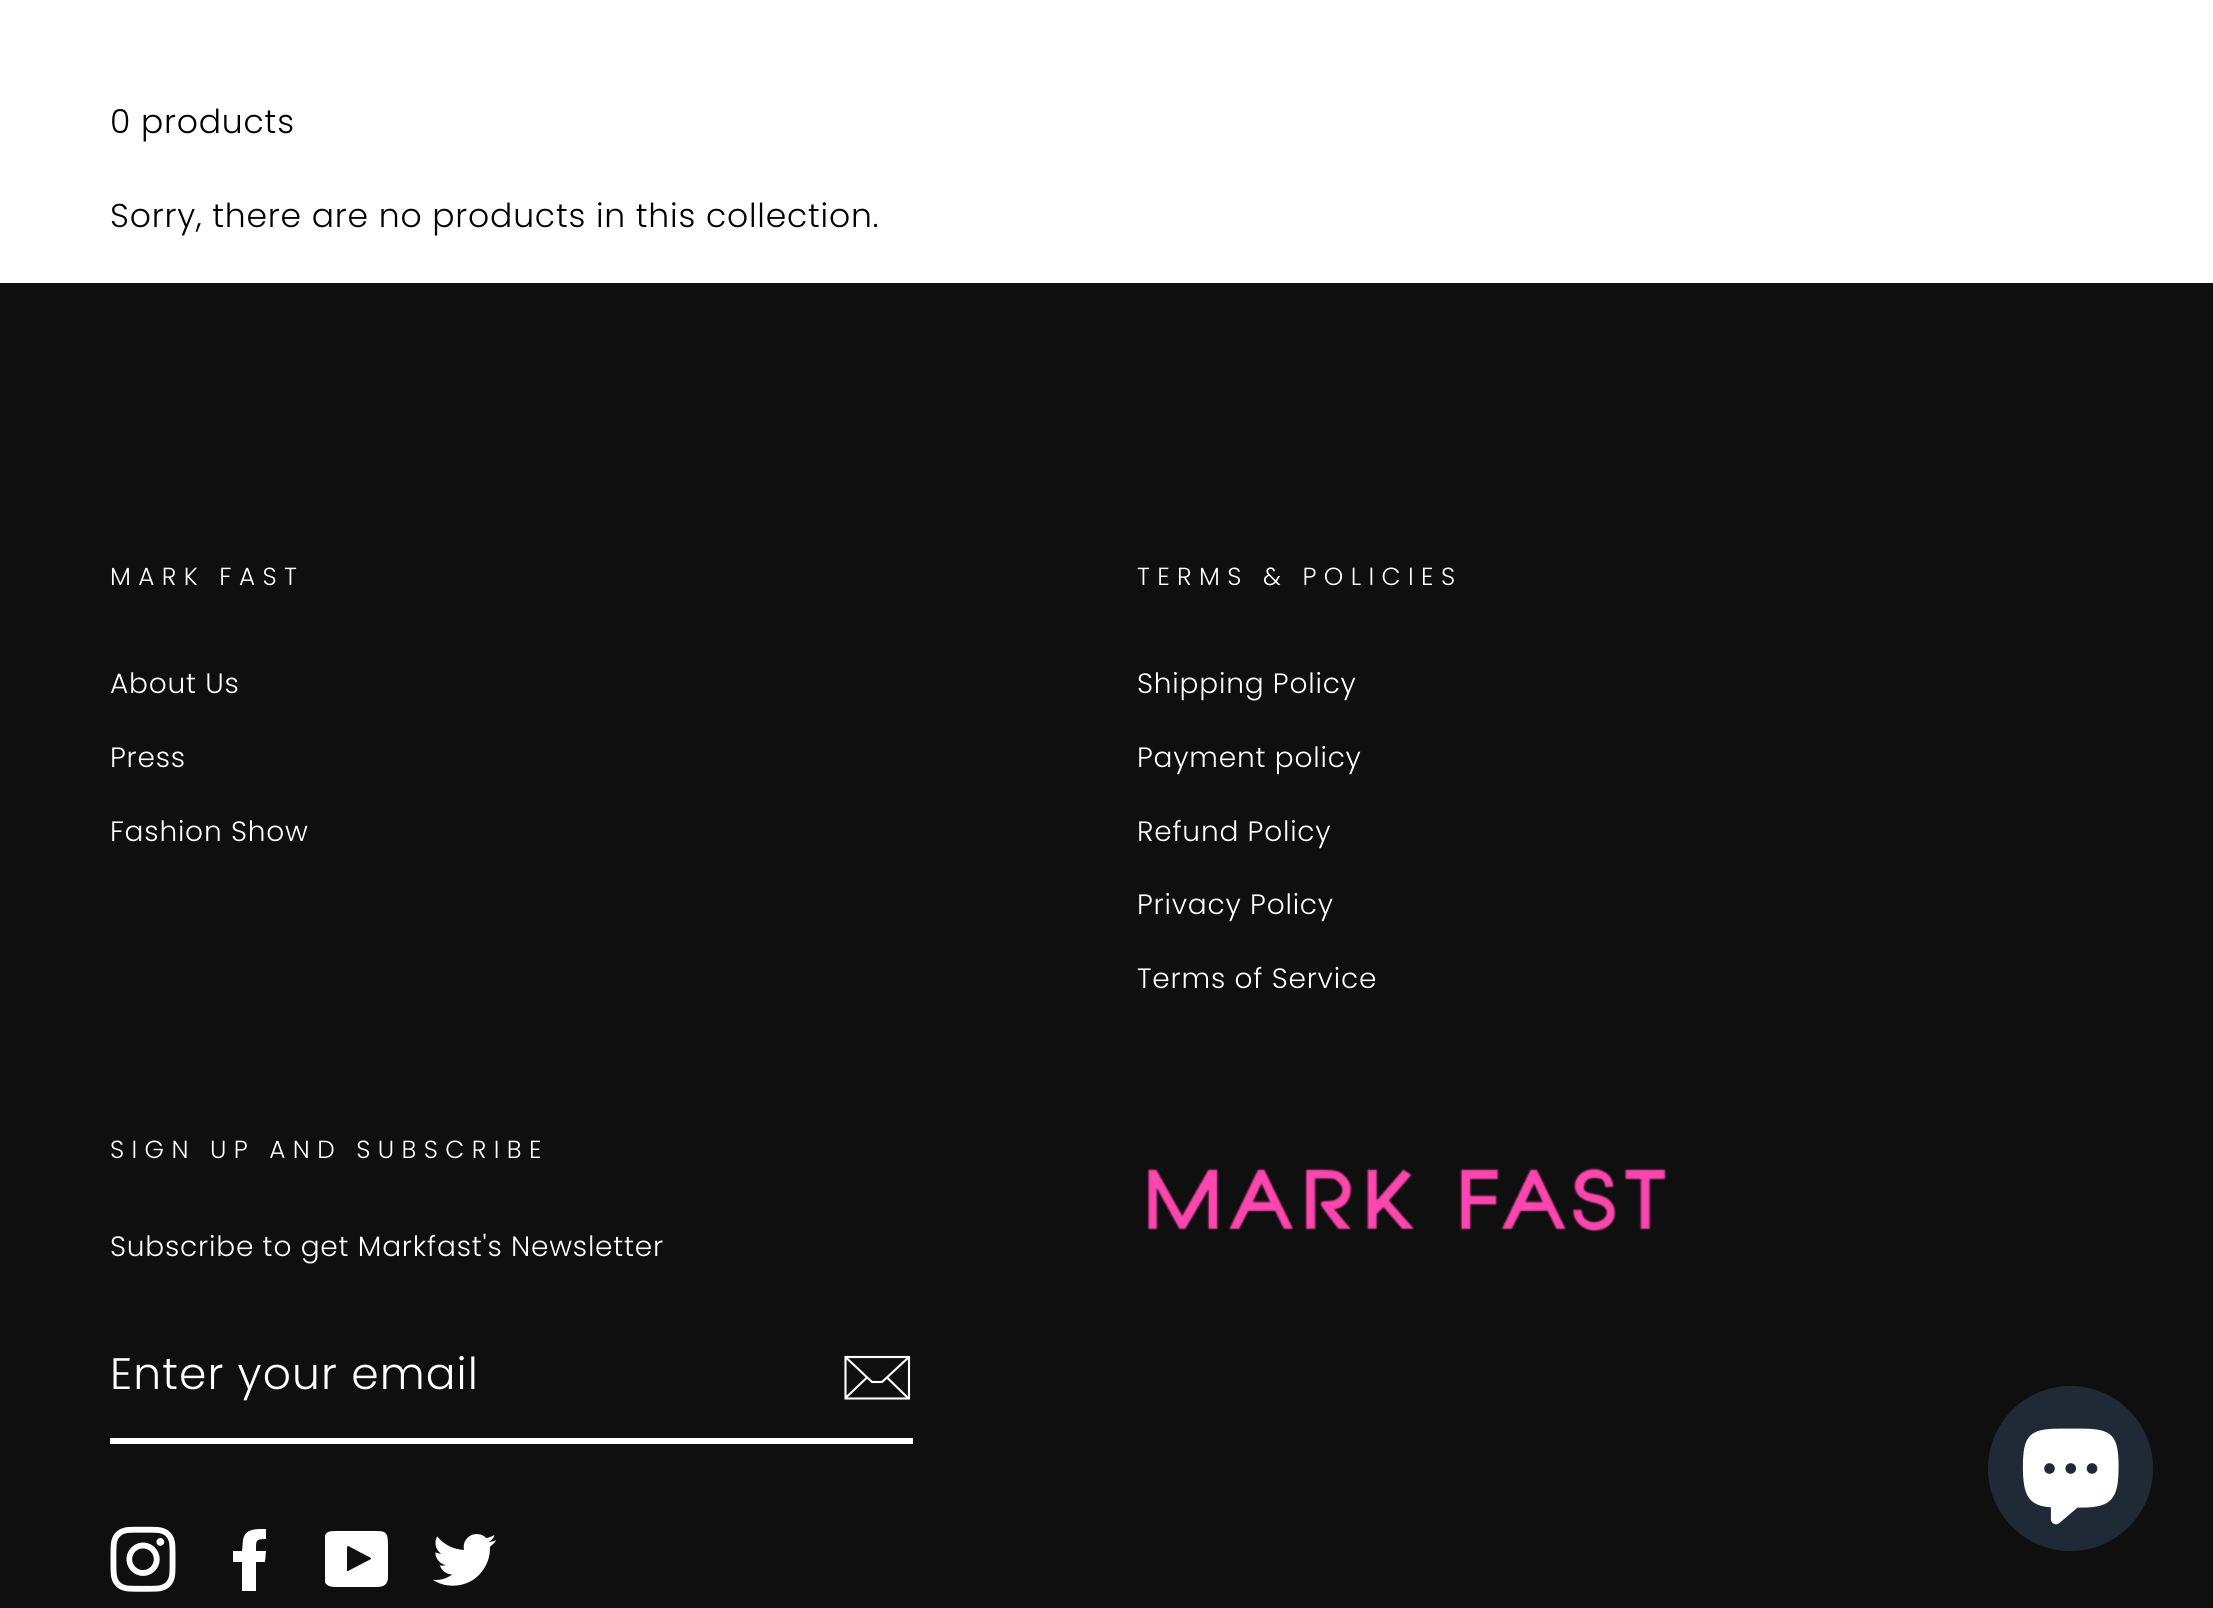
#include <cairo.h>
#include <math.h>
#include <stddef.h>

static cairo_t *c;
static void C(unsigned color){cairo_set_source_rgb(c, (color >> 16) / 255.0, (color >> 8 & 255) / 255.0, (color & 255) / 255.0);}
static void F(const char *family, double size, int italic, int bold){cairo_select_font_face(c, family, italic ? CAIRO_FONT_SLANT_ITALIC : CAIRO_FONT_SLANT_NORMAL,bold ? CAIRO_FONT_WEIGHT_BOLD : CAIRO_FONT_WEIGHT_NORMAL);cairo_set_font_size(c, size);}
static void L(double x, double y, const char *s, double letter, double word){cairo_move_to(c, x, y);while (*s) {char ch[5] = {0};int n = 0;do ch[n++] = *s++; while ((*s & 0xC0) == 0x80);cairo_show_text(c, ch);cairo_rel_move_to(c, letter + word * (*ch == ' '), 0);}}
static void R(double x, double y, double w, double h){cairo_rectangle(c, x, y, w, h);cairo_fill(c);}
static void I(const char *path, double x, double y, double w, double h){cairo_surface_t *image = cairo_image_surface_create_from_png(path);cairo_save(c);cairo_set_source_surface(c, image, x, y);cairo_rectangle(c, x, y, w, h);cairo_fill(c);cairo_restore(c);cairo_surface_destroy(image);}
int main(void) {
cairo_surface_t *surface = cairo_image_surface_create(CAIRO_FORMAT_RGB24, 2213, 1608);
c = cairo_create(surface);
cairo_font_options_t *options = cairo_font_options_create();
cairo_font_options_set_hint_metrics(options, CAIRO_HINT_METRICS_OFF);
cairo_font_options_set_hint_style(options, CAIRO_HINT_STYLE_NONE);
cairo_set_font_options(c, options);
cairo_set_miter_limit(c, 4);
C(0xffffff);
cairo_paint(c);
F("Poppins Light",33,0,0);
C(0x000000);
L(110,133,"0 products",.8,0);
L(110,227,"Sorry, there are no products in this collection.",.8,0);
C(0x0f0f0f);
R(0,283,2213,1325);
F("Poppins Light",24.75,0,0);
C(0xffffff);
L(110,585,"MARK FAST",7.4,0);
F("Poppins Light",28,0,0);
L(110,693,"About Us",.8,0);
L(110,767,"Press",.8,0);
L(110,841,"Fashion Show",.8,0);
F("Poppins Light",24.75,0,0);
L(1137,585,"TERMS & POLICIES",7.4,0);
F("Poppins Light",28,0,0);
L(1137,693,"Shipping Policy",.8,0);
L(1137,767,"Payment policy",.8,0);
L(1137,841,"Refund Policy",.8,0);
L(1137,914,"Privacy Policy",.8,0);
L(1137,988,"Terms of Service",.8,0);
F("Poppins Light",24.75,0,0);
L(110,1158,"SIGN UP AND SUBSCRIBE",7.4,0);
F("Poppins Light",28,0,0);
L(110,1256,"Subscribe to get Markfast's Newsletter",.8,0);
R(110,1438,803,6);
F("Poppins Light",44,0,0);
L(110,1389,"Enter your email",1.1,0);
cairo_new_path(c);
cairo_move_to(c,909,1398.5);
cairo_line_to(c,845.5,1398.5);
cairo_line_to(c,845.5,1357);
cairo_line_to(c,909,1357);
cairo_close_path(c);
cairo_move_to(c,845.5,1357);
cairo_line_to(c,872,1382);
cairo_line_to(c,882,1382);
cairo_line_to(c,909,1357);
cairo_move_to(c,867,1377.5);
cairo_line_to(c,846,1397.5);
cairo_move_to(c,908.5,1398.5);
cairo_line_to(c,887,1377.5);
cairo_set_line_width(c,2.1);
cairo_stroke(c);
I("1.png",110,1526,66,66);
cairo_new_path(c);
cairo_move_to(c,256,1591);
cairo_line_to(c,256,1562);
cairo_line_to(c,265,1562);
cairo_line_to(c,266,1551);
cairo_line_to(c,256,1551);
cairo_curve_to(c,256,1541,255,1539,266,1539);
cairo_line_to(c,266,1529);
cairo_curve_to(c,257,1529,245,1528,243,1540);
cairo_line_to(c,242,1551);
cairo_line_to(c,233,1551);
cairo_line_to(c,233,1562);
cairo_line_to(c,242,1562);
cairo_line_to(c,242,1591);
cairo_close_path(c);
cairo_fill(c);
cairo_save(c);
cairo_rectangle(c,325,1526,66,66);
cairo_clip(c);
cairo_new_path(c);
cairo_move_to(c,324,1577);
cairo_curve_to(c,324,1588,333,1587,340,1587);
cairo_line_to(c,372,1587);
cairo_curve_to(c,379,1587,388,1588,388,1577);
cairo_line_to(c,388,1546);
cairo_curve_to(c,388,1531,386,1531,372,1531);
cairo_line_to(c,340,1531);
cairo_curve_to(c,326,1531,324,1531,324,1546);
cairo_close_path(c);
cairo_move_to(c,347,1571);
cairo_line_to(c,347,1551);
cairo_curve_to(c,347,1545,347,1545,352,1548);
cairo_line_to(c,371,1558);
cairo_line_to(c,371,1559);
cairo_line_to(c,348,1571);
cairo_close_path(c);
cairo_fill(c);
cairo_restore(c);
I("2.png",433,1534,64,52);
I("3.png",1147,1167,519,65);
C(0x202a36);
cairo_arc(c,2070.5,1468.5,82.5,0,2 * M_PI);
cairo_fill(c);
I("4.png",2022,1428,97,97);
cairo_surface_write_to_png(surface, "o.png");
cairo_font_options_destroy(options);
cairo_destroy(c);
cairo_surface_destroy(surface);
return 0;
}
